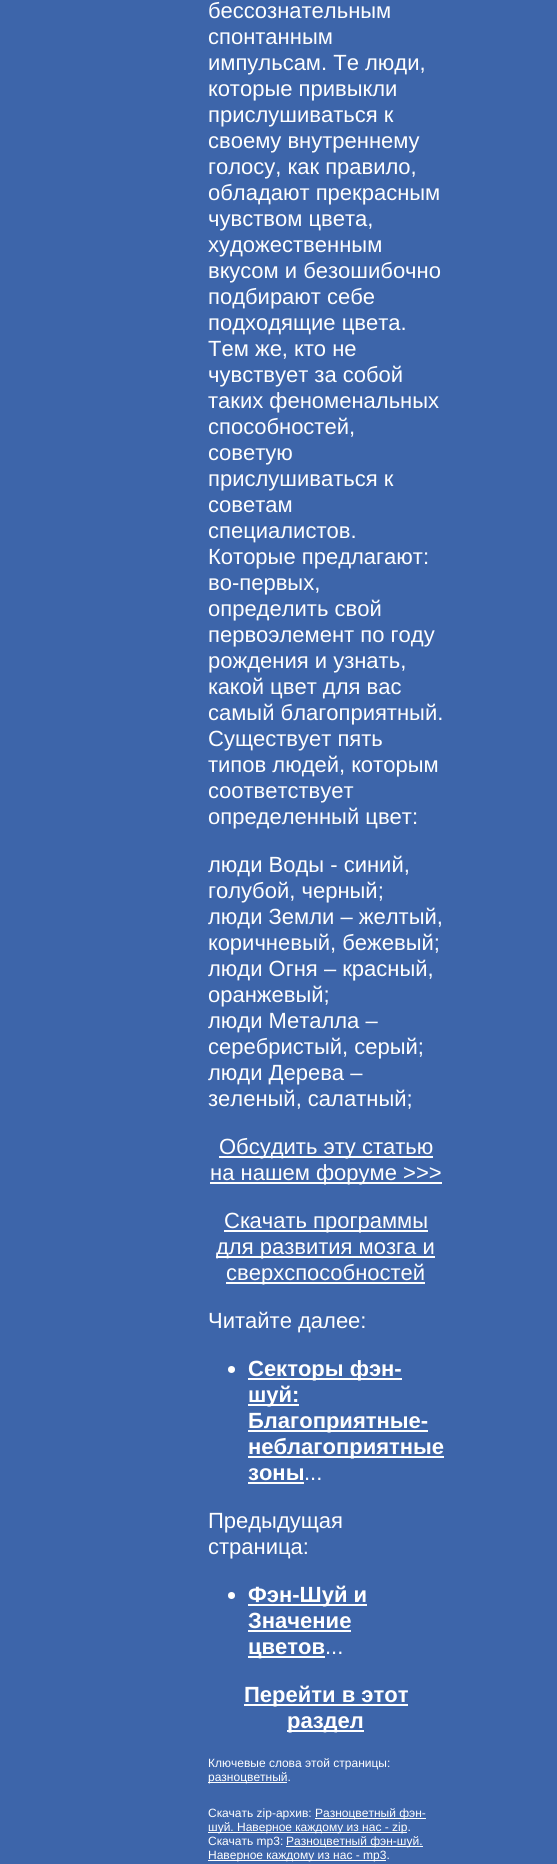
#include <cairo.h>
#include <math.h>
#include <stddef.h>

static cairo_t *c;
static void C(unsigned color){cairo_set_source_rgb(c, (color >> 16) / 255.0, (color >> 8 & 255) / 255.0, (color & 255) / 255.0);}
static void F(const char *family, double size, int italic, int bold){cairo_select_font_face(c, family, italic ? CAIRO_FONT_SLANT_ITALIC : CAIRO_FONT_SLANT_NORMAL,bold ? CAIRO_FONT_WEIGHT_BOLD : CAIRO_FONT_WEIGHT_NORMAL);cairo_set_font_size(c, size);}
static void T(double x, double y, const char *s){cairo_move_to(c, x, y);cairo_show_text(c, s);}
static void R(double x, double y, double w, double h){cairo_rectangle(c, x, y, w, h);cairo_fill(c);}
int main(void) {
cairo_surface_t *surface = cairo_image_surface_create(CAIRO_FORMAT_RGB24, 557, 1864);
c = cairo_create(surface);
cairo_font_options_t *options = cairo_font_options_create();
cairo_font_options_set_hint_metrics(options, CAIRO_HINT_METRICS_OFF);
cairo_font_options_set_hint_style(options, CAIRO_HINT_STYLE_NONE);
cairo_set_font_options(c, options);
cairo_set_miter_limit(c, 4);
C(0x3d65aa);
cairo_paint(c);
F("Liberation Sans",22,0,0);
C(0xffffff);
T(208,18,"бессознательным");
T(208,44,"спонтанным");
T(208,70,"импульсам. Те люди,");
T(208,96,"которые привыкли");
T(208,122,"прислушиваться к");
T(208,148,"своему внутреннему");
T(208,174,"голосу, как правило,");
T(208,200,"обладают прекрасным");
T(208,226,"чувством цвета,");
T(208,252,"художественным");
T(208,278,"вкусом и безошибочно");
T(208,304,"подбирают себе");
T(208,330,"подходящие цвета.");
T(208,356,"Тем же, кто не");
T(208,382,"чувствует за собой");
T(208,408,"таких феноменальных");
T(208,434,"способностей,");
T(208,460,"советую");
T(208,486,"прислушиваться к");
T(208,512,"советам");
T(208,538,"специалистов.");
T(208,564,"Которые предлагают:");
T(208,590,"во-первых,");
T(208,616,"определить свой");
T(208,642,"первоэлемент по году");
T(208,668,"рождения и узнать,");
T(208,694,"какой цвет для вас");
T(208,720,"самый благоприятный.");
T(208,746,"Существует пять");
T(208,772,"типов людей, которым");
T(208,798,"соответствует");
T(208,824,"определенный цвет:");
T(208,872,"люди Воды - синий,");
T(208,898,"голубой, черный;");
T(208,924,"люди Земли – желтый,");
T(208,950,"коричневый, бежевый;");
T(208,976,"люди Огня – красный,");
T(208,1002,"оранжевый;");
T(208,1028,"люди Металла –");
T(208,1054,"серебристый, серый;");
T(208,1080,"люди Дерева –");
T(208,1106,"зеленый, салатный;");
R(219,1156,214,2);
T(219,1154,"Обсудить эту статью");
R(210,1182,232,2);
T(210,1180,"на нашем форуме >>>");
R(224,1230,204,2);
T(224,1228,"Скачать программы");
R(216,1256,219,2);
T(216,1254,"для развития мозга и");
R(226,1282,199,2);
T(226,1280,"сверхспособностей");
T(208,1328,"Читайте далее:");
cairo_new_path(c);
cairo_arc(c,231.5,1369.5,3.5,0,2 * M_PI);
cairo_fill(c);
R(248,1378,154,2);
F("Liberation Sans",22,0,1);
T(248,1376,"Секторы фэн-");
R(248,1404,51,2);
T(248,1402,"шуй:");
R(248,1430,180,2);
T(248,1428,"Благоприятные-");
R(248,1456,196,2);
T(248,1454,"неблагоприятные");
T(248,1480,"зоны");
R(248,1482,56,2);
F("Liberation Sans",22,0,0);
T(304,1480,"...");
T(208,1528,"Предыдущая");
T(208,1554,"страница:");
cairo_new_path(c);
cairo_arc(c,231.5,1595.5,3.5,0,2 * M_PI);
cairo_fill(c);
R(248,1604,119,2);
F("Liberation Sans",22,0,1);
T(248,1602,"Фэн-Шуй и");
T(248,1628,"Значение");
R(248,1630,103,2);
R(248,1656,77,2);
T(248,1654,"цветов");
F("Liberation Sans",22,0,0);
T(325,1654,"...");
R(244,1704,164,2);
F("Liberation Sans",22,0,1);
T(244,1702,"Перейти в этот");
R(287,1730,77,2);
T(287,1728,"раздел");
F("Liberation Sans",12,0,0);
T(208,1767,"Ключевые слова этой страницы:");
R(208,1782,79,1);
T(208,1781,"разноцветный.");
T(208,1817,"Скачать zip-архив:");
R(315,1818,111,1);
T(315,1817,"Разноцветный фэн-");
R(208,1832,199,1);
T(208,1831,"шуй. Наверное каждому из нас - zip.");
T(208,1845,"Скачать mp3:");
R(286,1846,137,1);
T(286,1845,"Разноцветный фэн-шуй.");
R(208,1860,178,1);
T(208,1859,"Наверное каждому из нас - mp3.");
cairo_surface_write_to_png(surface, "o.png");
cairo_font_options_destroy(options);
cairo_destroy(c);
cairo_surface_destroy(surface);
return 0;
}
